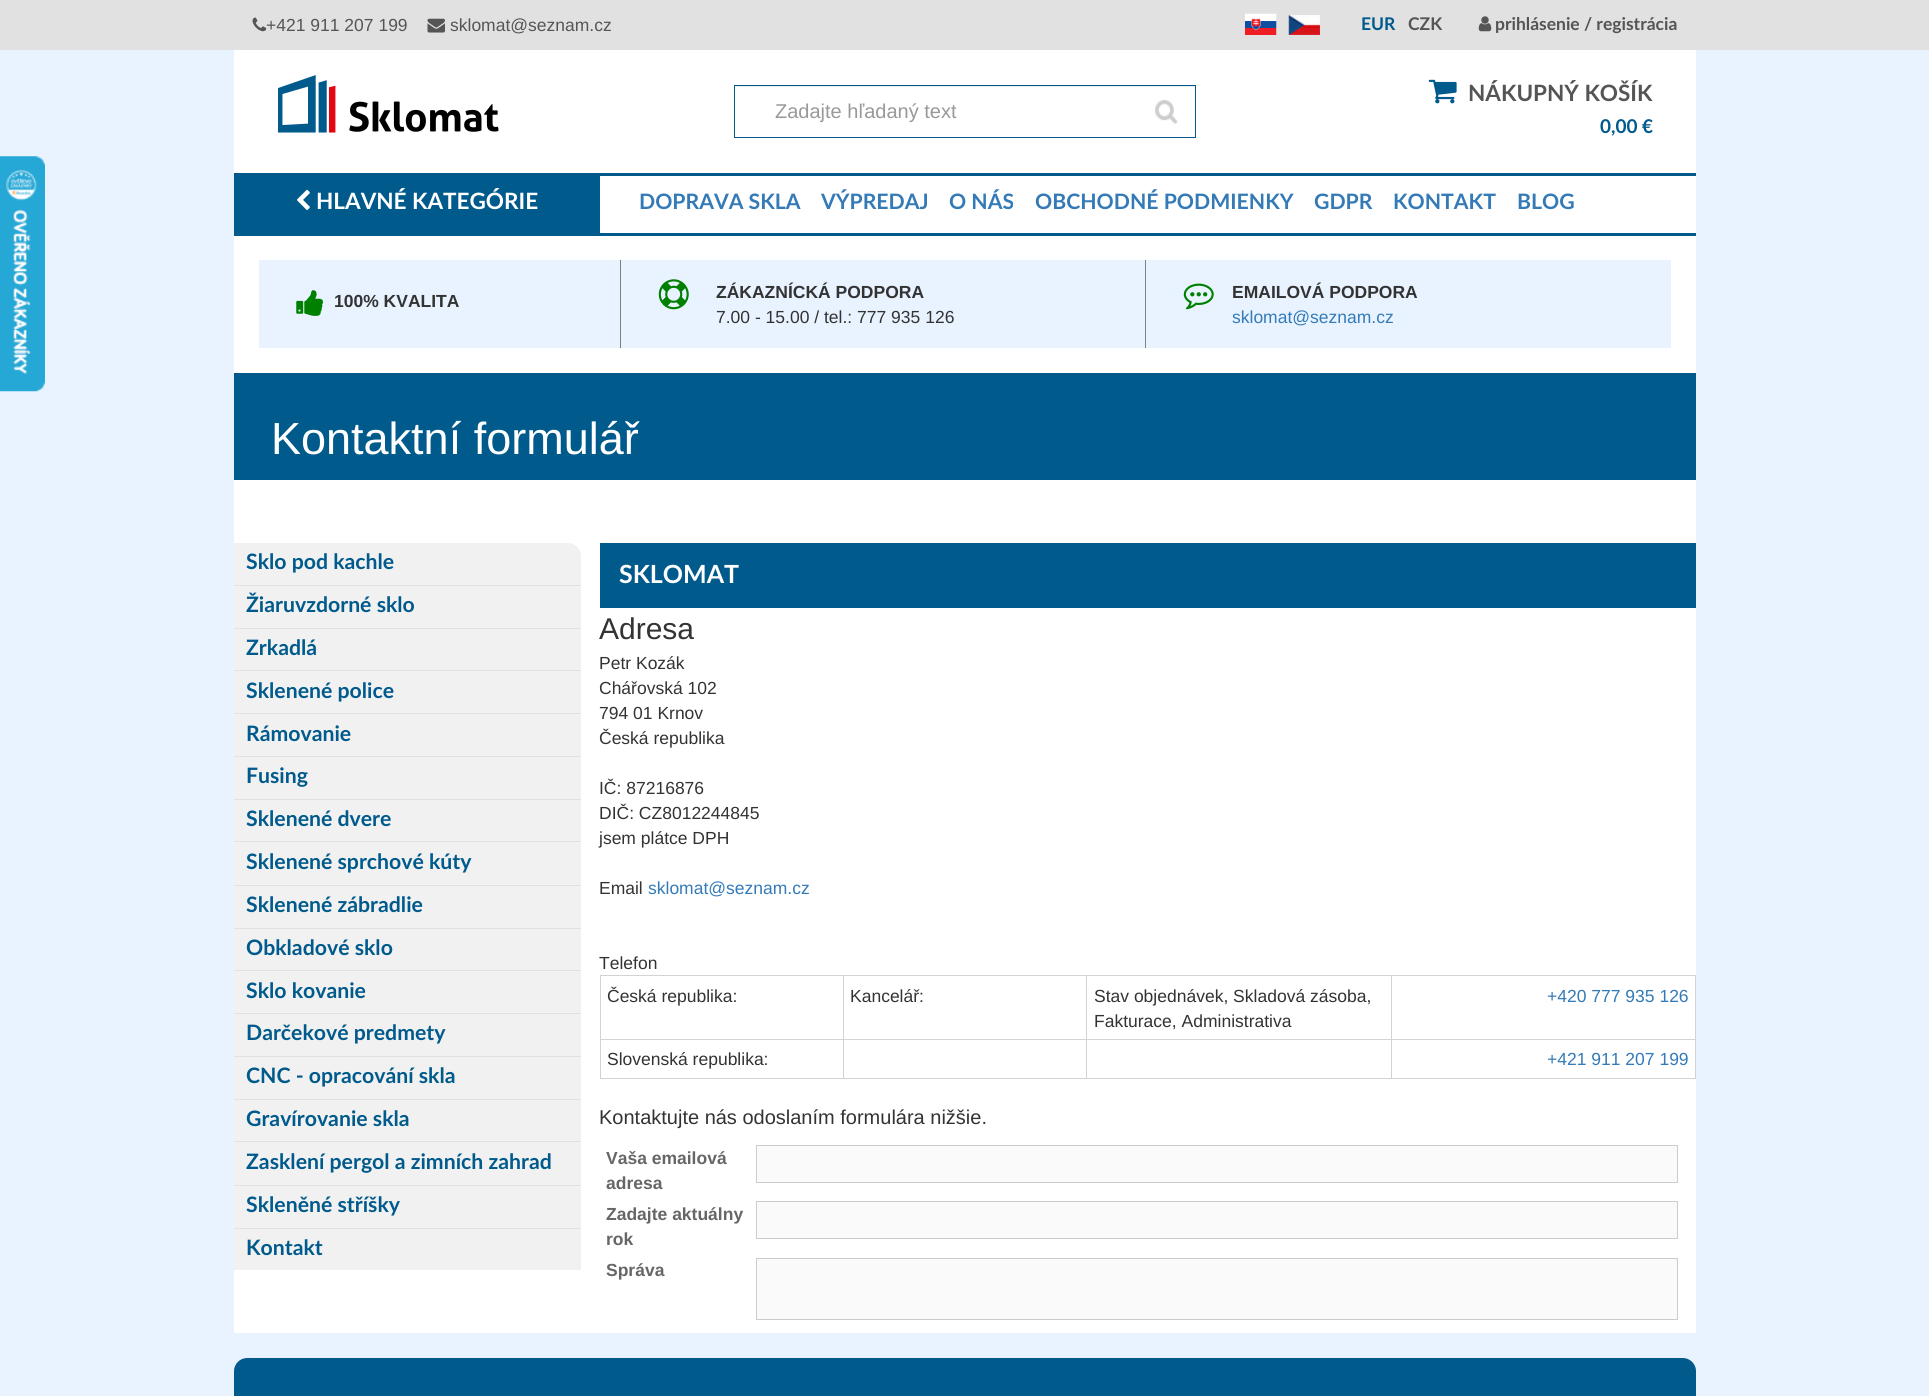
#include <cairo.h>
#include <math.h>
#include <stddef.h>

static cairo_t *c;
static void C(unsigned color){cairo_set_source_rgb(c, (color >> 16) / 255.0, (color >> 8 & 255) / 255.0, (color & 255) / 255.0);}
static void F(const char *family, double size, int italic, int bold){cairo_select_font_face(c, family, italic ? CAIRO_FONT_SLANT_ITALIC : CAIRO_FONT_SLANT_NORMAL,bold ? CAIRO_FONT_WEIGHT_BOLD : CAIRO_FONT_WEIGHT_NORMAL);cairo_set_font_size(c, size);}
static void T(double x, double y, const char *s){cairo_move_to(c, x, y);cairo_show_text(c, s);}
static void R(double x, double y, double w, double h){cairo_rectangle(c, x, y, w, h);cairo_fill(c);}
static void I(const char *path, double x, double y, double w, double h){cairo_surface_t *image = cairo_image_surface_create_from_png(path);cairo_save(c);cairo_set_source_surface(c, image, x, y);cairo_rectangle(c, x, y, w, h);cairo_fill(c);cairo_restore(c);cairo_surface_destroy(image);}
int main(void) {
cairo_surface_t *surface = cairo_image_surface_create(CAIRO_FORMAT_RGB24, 1929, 1396);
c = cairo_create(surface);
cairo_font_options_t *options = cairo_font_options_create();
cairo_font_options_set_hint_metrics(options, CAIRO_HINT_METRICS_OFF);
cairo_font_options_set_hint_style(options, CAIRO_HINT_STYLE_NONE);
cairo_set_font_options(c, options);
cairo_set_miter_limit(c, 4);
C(0xe8f3ff);
cairo_paint(c);
C(0xe1e1e1);
R(0,0,1929,50);
I("1.png",252,17,15,15);
F("Liberation Sans",17.5,0,0);
C(0x555555);
T(266,31,"+421 911 207 199");
I("2.png",427,18,18,15);
T(450,31,"sklomat@seznam.cz");
I("3.png",1245,13,32,22);
I("4.png",1288,15,32,20);
F("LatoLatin",17.5,0,1);
C(0x005a8c);
T(1361,30,"EUR");
C(0x555555);
T(1408,30,"CZK");
I("5.png",1478,16,14,16);
T(1495,30,"prihlásenie / registrácia");
I("6.png",0,156,45,236);
C(0xffffff);
R(234,50,1462,1283);
I("7.png",278,75,221,58);
I("8.png",1155,100,23,24);
C(0xececec);
R(735,86,460,1);
cairo_rectangle(c,734.5,85.5,461,52);
C(0x005a8c);
cairo_set_line_width(c,1);
cairo_stroke(c);
F("Liberation Sans",20,0,0);
C(0x999999);
T(775,118,"Zadajte hľadaný text");
I("9.png",1428,79,29,25);
F("LatoLatin",22.5,0,1);
C(0x555555);
T(1468,101,"NÁKUPNÝ KOŠÍK");
F("LatoLatin",19,0,1);
C(0x005a8c);
T(1600,133,"0,00 €");
R(234,173,366,63);
I("10.png",297,189,13,21);
F("LatoLatin",22.5,0,1);
C(0xffffff);
T(316,209,"HLAVNÉ KATEGÓRIE");
C(0x005a8c);
R(600,173,1096,3);
F("LatoLatin",21.25,0,1);
C(0x337ab7);
T(639,209,"DOPRAVA SKLA");
T(821,209,"VÝPREDAJ");
T(949,209,"O NÁS");
T(1035,209,"OBCHODNÉ PODMIENKY");
T(1314,209,"GDPR");
T(1393,209,"KONTAKT");
T(1517,209,"BLOG");
C(0x005a8c);
R(600,233,1096,3);
C(0xe8f3ff);
R(259,260,1412,88);
C(0x808080);
R(620,260,1,88);
I("11.png",296,290,27,26);
F("Liberation Sans",17.5,0,1);
C(0x333333);
T(334,307,"100% KVALITA");
C(0x808080);
R(1145,260,1,88);
I("12.png",658,279,31,31);
C(0x333333);
T(716,298,"ZÁKAZNÍCKÁ PODPORA");
F("Liberation Sans",17.5,0,0);
T(716,323,"7.00 - 15.00 / tel.: 777 935 126");
I("13.png",1183,283,31,27);
F("Liberation Sans",17.5,0,1);
T(1232,298,"EMAILOVÁ PODPORA");
F("Liberation Sans",17.5,0,0);
C(0x337ab7);
T(1232,323,"sklomat@seznam.cz");
C(0x005a8c);
R(234,373,1462,107);
F("Liberation Sans",45,0,0);
C(0xffffff);
T(271,454,"Kontaktní formulář");
C(0xf1f1f1);
cairo_new_path(c);
cairo_move_to(c,234,543);
cairo_line_to(c,568,543);
cairo_curve_to(c,575,543,581,549,581,556);
cairo_line_to(c,581,586);
cairo_line_to(c,234,586);
cairo_close_path(c);
cairo_fill(c);
C(0xe1e1e1);
R(234,585,347,1);
F("LatoLatin",21.25,0,1);
C(0x005a8c);
T(246,569,"Sklo pod kachle");
C(0xf1f1f1);
R(234,586,347,42);
C(0xe1e1e1);
R(234,628,347,1);
C(0x005a8c);
T(246,612,"Žiaruvzdorné sklo");
C(0xf1f1f1);
R(234,629,347,41);
C(0xe1e1e1);
R(234,670,347,1);
C(0x005a8c);
T(246,655,"Zrkadlá");
C(0xf1f1f1);
R(234,671,347,42);
C(0xe1e1e1);
R(234,713,347,1);
C(0x005a8c);
T(246,698,"Sklenené police");
C(0xf1f1f1);
R(234,714,347,85);
C(0xe1e1e1);
R(234,756,347,1);
C(0x005a8c);
T(246,741,"Rámovanie");
C(0xe1e1e1);
R(234,799,347,1);
C(0x005a8c);
T(246,783,"Fusing");
C(0xf1f1f1);
R(234,800,347,85);
C(0xe1e1e1);
R(234,841,347,1);
C(0x005a8c);
T(246,826,"Sklenené dvere");
C(0xe1e1e1);
R(234,885,347,1);
C(0x005a8c);
T(246,869,"Sklenené sprchové kúty");
C(0xf1f1f1);
R(234,886,347,42);
C(0xe1e1e1);
R(234,928,347,1);
C(0x005a8c);
T(246,912,"Sklenené zábradlie");
C(0xf1f1f1);
R(234,929,347,41);
C(0xe1e1e1);
R(234,970,347,1);
C(0x005a8c);
T(246,955,"Obkladové sklo");
C(0xf1f1f1);
R(234,971,347,42);
C(0xe1e1e1);
R(234,1013,347,1);
C(0x005a8c);
T(246,998,"Sklo kovanie");
C(0xf1f1f1);
R(234,1014,347,85);
C(0xe1e1e1);
R(234,1056,347,1);
C(0x005a8c);
T(246,1040,"Darčekové predmety");
C(0xe1e1e1);
R(234,1099,347,1);
C(0x005a8c);
T(246,1083,"CNC - opracování skla");
C(0xf1f1f1);
R(234,1100,347,85);
C(0xe1e1e1);
R(234,1141,347,1);
C(0x005a8c);
T(246,1126,"Gravírovanie skla");
C(0xe1e1e1);
R(234,1185,347,1);
C(0x005a8c);
T(246,1169,"Zasklení pergol a zimních zahrad");
C(0xf1f1f1);
R(234,1186,347,42);
C(0xe1e1e1);
R(234,1228,347,1);
C(0x005a8c);
T(246,1212,"Skleněné stříšky");
C(0xf1f1f1);
R(234,1229,347,41);
C(0x005a8c);
T(246,1255,"Kontakt");
R(600,543,1096,65);
F("LatoLatin",25,0,1);
C(0xffffff);
T(619,583,"SKLOMAT");
F("Liberation Sans",30,0,0);
C(0x333333);
T(599,639,"Adresa");
F("Liberation Sans",17.5,0,0);
T(599,669,"Petr Kozák");
T(599,694,"Chářovská 102");
T(599,719,"794 01 Krnov");
T(599,744,"Česká republika");
T(599,794,"IČ: 87216876");
T(599,819,"DIČ: CZ8012244845");
T(599,844,"jsem plátce DPH");
T(599,894,"Email");
C(0x337ab7);
T(648,894,"sklomat@seznam.cz");
C(0x333333);
T(599,969,"Telefon");
C(0xd3d3d3);
R(1391,975,305,1);
R(1391,1039,305,1);
R(1695,1039,1,40);
R(1391,1078,305,1);
R(1391,1039,1,40);
R(1086,1039,307,1);
R(1391,975,1,65);
R(1086,975,307,1);
R(1086,1078,307,1);
R(1086,1039,1,40);
R(843,1039,245,1);
R(1086,975,1,65);
R(843,975,245,1);
R(843,1078,245,1);
R(843,1039,1,40);
R(600,1039,244,1);
R(843,975,1,65);
R(600,975,244,1);
R(600,1078,244,1);
R(600,1039,1,40);
R(600,975,1,65);
C(0x333333);
T(607,1002,"Česká republika:");
T(850,1002,"Kancelář:");
T(1094,1002,"Stav objednávek, Skladová zásoba,");
T(1094,1027,"Fakturace, Administrativa");
C(0xd3d3d3);
R(1695,975,1,65);
C(0x337ab7);
T(1547,1002,"+420 777 935 126");
C(0x333333);
T(607,1065,"Slovenská republika:");
C(0x337ab7);
T(1547,1065,"+421 911 207 199");
F("Liberation Sans",20,0,0);
C(0x333333);
T(599,1124,"Kontaktujte nás odoslaním formulára nižšie.");
F("Liberation Sans",17.5,0,1);
C(0x666666);
T(606,1164,"Vaša emailová");
T(606,1189,"adresa");
C(0xfafafa);
cairo_rectangle(c,756.5,1145.5,921,37);
cairo_fill_preserve(c);
C(0xcccccc);
cairo_stroke(c);
C(0x666666);
T(606,1220,"Zadajte aktuálny");
T(606,1245,"rok");
C(0xfafafa);
cairo_rectangle(c,756.5,1201.5,921,37);
cairo_fill_preserve(c);
C(0xcccccc);
cairo_stroke(c);
C(0x666666);
T(606,1276,"Správa");
C(0xfafafa);
cairo_rectangle(c,756.5,1258.5,921,61);
cairo_fill_preserve(c);
C(0xcccccc);
cairo_stroke(c);
C(0x005a8c);
cairo_new_path(c);
cairo_move_to(c,247,1358);
cairo_line_to(c,1683,1358);
cairo_curve_to(c,1690,1358,1696,1364,1696,1371);
cairo_line_to(c,1696,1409);
cairo_line_to(c,234,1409);
cairo_line_to(c,234,1371);
cairo_curve_to(c,234,1364,240,1358,247,1358);
cairo_close_path(c);
cairo_fill(c);
cairo_surface_write_to_png(surface, "o.png");
cairo_font_options_destroy(options);
cairo_destroy(c);
cairo_surface_destroy(surface);
return 0;
}
